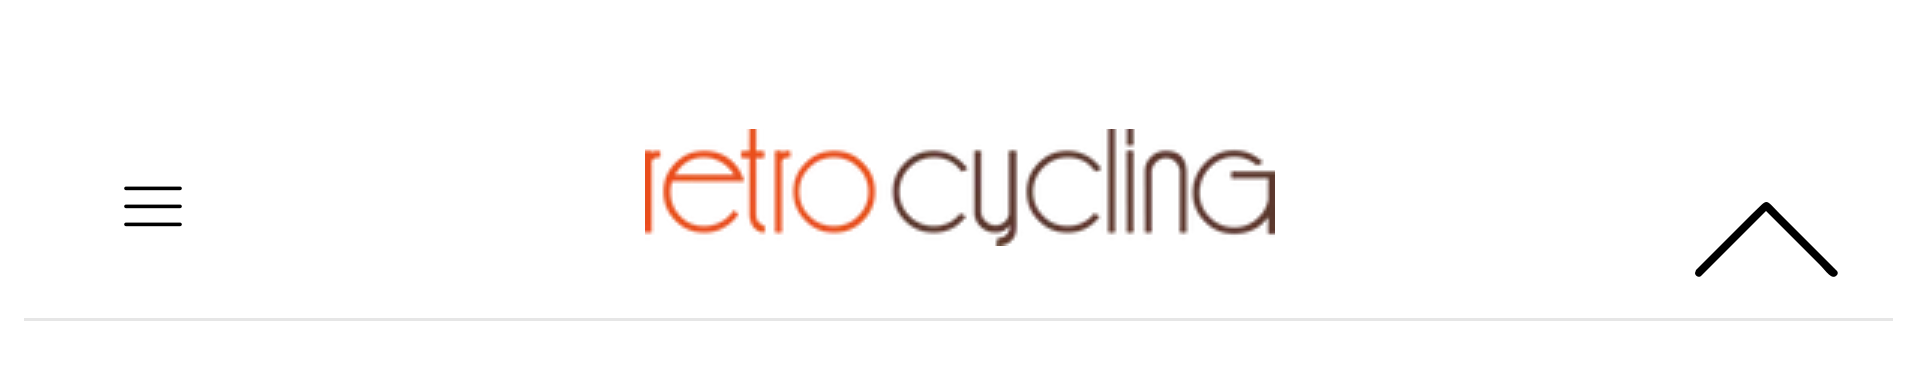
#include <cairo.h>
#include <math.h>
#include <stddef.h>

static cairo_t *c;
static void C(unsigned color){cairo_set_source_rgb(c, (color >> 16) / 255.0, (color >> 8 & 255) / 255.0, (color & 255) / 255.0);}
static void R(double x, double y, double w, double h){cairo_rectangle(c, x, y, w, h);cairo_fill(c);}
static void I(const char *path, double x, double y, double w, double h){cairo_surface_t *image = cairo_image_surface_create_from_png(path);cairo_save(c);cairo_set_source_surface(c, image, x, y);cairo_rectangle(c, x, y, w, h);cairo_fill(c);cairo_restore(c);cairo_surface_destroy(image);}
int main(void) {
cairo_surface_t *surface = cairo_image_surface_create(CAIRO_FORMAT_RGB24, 1917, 371);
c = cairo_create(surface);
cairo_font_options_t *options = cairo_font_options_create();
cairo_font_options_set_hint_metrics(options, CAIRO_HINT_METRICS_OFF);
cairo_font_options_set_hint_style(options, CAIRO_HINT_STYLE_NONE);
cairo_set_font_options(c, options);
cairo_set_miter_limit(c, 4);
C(0xffffff);
cairo_paint(c);
I("1.png",124,186,58,41);
I("2.png",645,129,630,117);
C(0x000000);
cairo_new_path(c);
cairo_move_to(c,1695,273);
cairo_curve_to(c,1695,276,1699,278,1701,276);
cairo_line_to(c,1766,211);
cairo_line_to(c,1820,265);
cairo_curve_to(c,1826,271,1832,281,1837,275);
cairo_curve_to(c,1838,274,1838,272,1837,271);
cairo_line_to(c,1780,214);
cairo_curve_to(c,1764,198,1769,198,1752,214);
cairo_line_to(c,1696,270);
cairo_close_path(c);
cairo_fill(c);
C(0xe6e6e6);
R(24,318,1869,3);
cairo_surface_write_to_png(surface, "o.png");
cairo_font_options_destroy(options);
cairo_destroy(c);
cairo_surface_destroy(surface);
return 0;
}
